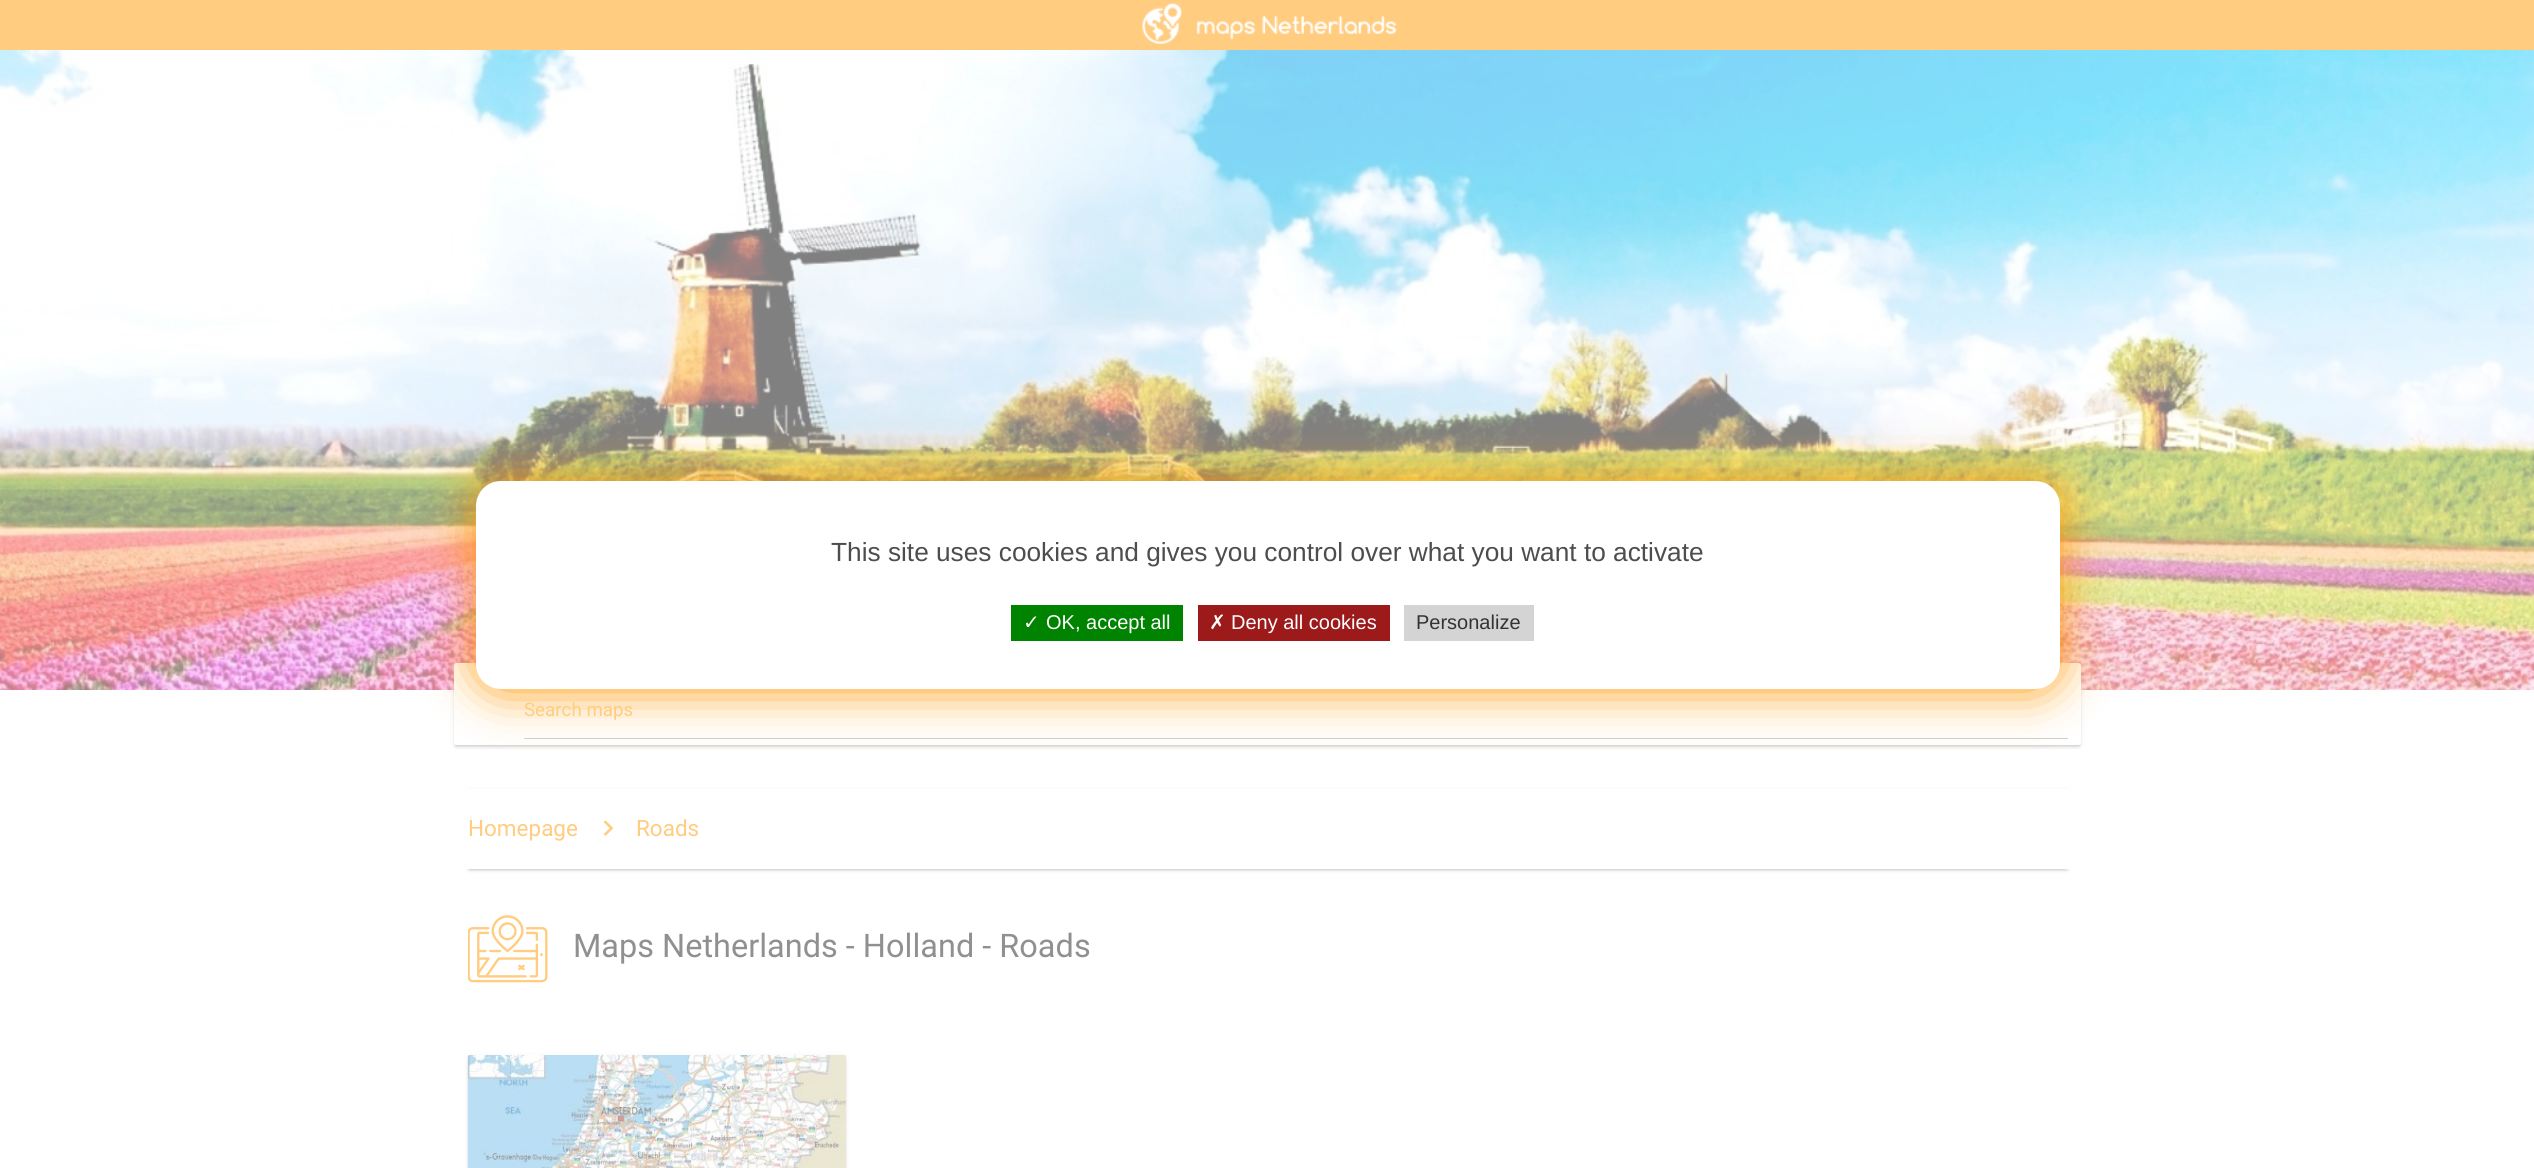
#include <cairo.h>
#include <math.h>
#include <stddef.h>

static cairo_t *c;
static void C(unsigned color){cairo_set_source_rgb(c, (color >> 16) / 255.0, (color >> 8 & 255) / 255.0, (color & 255) / 255.0);}
static void F(const char *family, double size, int italic, int bold){cairo_select_font_face(c, family, italic ? CAIRO_FONT_SLANT_ITALIC : CAIRO_FONT_SLANT_NORMAL,bold ? CAIRO_FONT_WEIGHT_BOLD : CAIRO_FONT_WEIGHT_NORMAL);cairo_set_font_size(c, size);}
static void T(double x, double y, const char *s){cairo_move_to(c, x, y);cairo_show_text(c, s);}
static void R(double x, double y, double w, double h){cairo_rectangle(c, x, y, w, h);cairo_fill(c);}
static void Q(double x, double y, double w, double h, double r){cairo_new_sub_path(c);cairo_arc(c, x + w - r, y + h - r, r, 0, M_PI / 2);cairo_arc(c, x + r, y + h - r, r, M_PI / 2, M_PI);cairo_arc(c, x + r, y + r, r, M_PI, 1.5 * M_PI);cairo_arc(c, x + w - r, y + r, r, 1.5 * M_PI, 2 * M_PI);cairo_close_path(c);}
static void S(double x, double y, double w, double h, double r, double blur, double alpha){cairo_push_group_with_content(c, CAIRO_CONTENT_ALPHA);cairo_set_operator(c, CAIRO_OPERATOR_SOURCE);for (int i = 15; i >= -15 && fmin(w, h) + blur * i / 3 > 0; i -= 2) {double e = blur * i / 6;cairo_set_source_rgba(c, 0, 0, 0, alpha * erfc((i - 1) / 8.5) / 2);Q(x - e, y - e, w + 2 * e, h + 2 * e, fmax(0, fmin(r + e + blur * .6, fmin(w, h) / 2 + e)));cairo_fill(c);}cairo_pattern_t *soft = cairo_pop_group(c);cairo_mask(c, soft);cairo_pattern_destroy(soft);}
static void I(const char *path, double x, double y, double w, double h){cairo_surface_t *image = cairo_image_surface_create_from_png(path);cairo_save(c);cairo_set_source_surface(c, image, x, y);cairo_rectangle(c, x, y, w, h);cairo_fill(c);cairo_restore(c);cairo_surface_destroy(image);}
int main(void) {
cairo_surface_t *surface = cairo_image_surface_create(CAIRO_FORMAT_RGB24, 2534, 1168);
c = cairo_create(surface);
cairo_font_options_t *options = cairo_font_options_create();
cairo_font_options_set_hint_metrics(options, CAIRO_HINT_METRICS_OFF);
cairo_font_options_set_hint_style(options, CAIRO_HINT_STYLE_NONE);
cairo_set_font_options(c, options);
cairo_set_miter_limit(c, 4);
C(0xffffff);
cairo_paint(c);
C(0xffcc80);
R(0,0,2534,50);
I("1.png",1142,3,255,41);
I("2.png",0,50,2534,640);
C(0x808080);
S(456,669,1623,77,0,.5,.2);
S(454,664,1627,82,2.5,3,.12);
S(454,665,1627,83,2.5,1,.14);
C(0xffffff);
Q(454,663,1627,82,2.5);
cairo_fill(c);
C(0xcfcfcf);
R(524,738,1544,1);
C(0xff9800);
S(476,481,1584,208,25,25,1);
C(0xffffff);
Q(476,481,1584,208,25);
cairo_fill(c);
F("Liberation Sans",26.25,0,0);
C(0x4d4d4d);
T(831,561,"This site uses cookies and gives you control over what you want to activate");
C(0x008300);
R(1011,605,172,36);
F("DejaVu Sans",20,0,0);
C(0xffffff);
T(1023,629,"✓");
F("Liberation Sans",20,0,0);
T(1046,629,"OK, accept all");
C(0x9c1a1a);
R(1198,605,192,36);
F("DejaVu Sans",20,0,0);
C(0xffffff);
T(1209,629,"✗");
F("Liberation Sans",20,0,0);
T(1231,629,"Deny all cookies");
C(0xd4d4d4);
R(1404,605,130,36);
C(0x333333);
T(1416,629,"Personalize");
F("Roboto",18.75,0,0);
C(0xffcc80);
T(524,716,"Search maps");
C(0x808080);
S(470,795,1595,75,0,.5,.2);
S(468,790,1600,80,0,3,.12);
S(468,791,1600,80,0,1,.14);
C(0xffffff);
R(465,789,1606,80);
F("Roboto",22.5,0,0);
C(0xffcc80);
T(468,836,"Homepage");
I("3.png",603,820,11,16);
T(636,836,"Roads");
I("4.png",468,915,80,68);
F("Roboto",32.5,0,0);
C(0x909090);
T(573,957,"Maps Netherlands - Holland - Roads");
C(0x808080);
S(468,1056,378,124,2.5,3,.12);
S(468,1058,378,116,2.5,1,.14);
I("5.png",467,1055,380,113);
cairo_surface_write_to_png(surface, "o.png");
cairo_font_options_destroy(options);
cairo_destroy(c);
cairo_surface_destroy(surface);
return 0;
}
